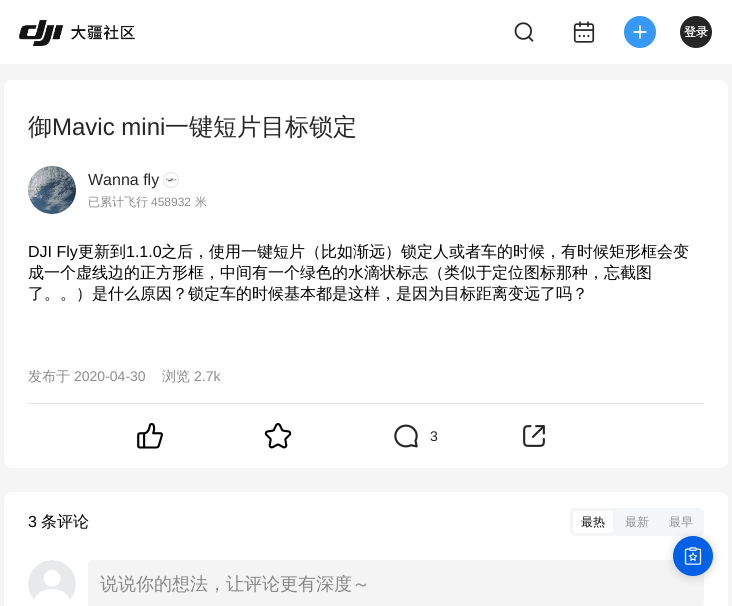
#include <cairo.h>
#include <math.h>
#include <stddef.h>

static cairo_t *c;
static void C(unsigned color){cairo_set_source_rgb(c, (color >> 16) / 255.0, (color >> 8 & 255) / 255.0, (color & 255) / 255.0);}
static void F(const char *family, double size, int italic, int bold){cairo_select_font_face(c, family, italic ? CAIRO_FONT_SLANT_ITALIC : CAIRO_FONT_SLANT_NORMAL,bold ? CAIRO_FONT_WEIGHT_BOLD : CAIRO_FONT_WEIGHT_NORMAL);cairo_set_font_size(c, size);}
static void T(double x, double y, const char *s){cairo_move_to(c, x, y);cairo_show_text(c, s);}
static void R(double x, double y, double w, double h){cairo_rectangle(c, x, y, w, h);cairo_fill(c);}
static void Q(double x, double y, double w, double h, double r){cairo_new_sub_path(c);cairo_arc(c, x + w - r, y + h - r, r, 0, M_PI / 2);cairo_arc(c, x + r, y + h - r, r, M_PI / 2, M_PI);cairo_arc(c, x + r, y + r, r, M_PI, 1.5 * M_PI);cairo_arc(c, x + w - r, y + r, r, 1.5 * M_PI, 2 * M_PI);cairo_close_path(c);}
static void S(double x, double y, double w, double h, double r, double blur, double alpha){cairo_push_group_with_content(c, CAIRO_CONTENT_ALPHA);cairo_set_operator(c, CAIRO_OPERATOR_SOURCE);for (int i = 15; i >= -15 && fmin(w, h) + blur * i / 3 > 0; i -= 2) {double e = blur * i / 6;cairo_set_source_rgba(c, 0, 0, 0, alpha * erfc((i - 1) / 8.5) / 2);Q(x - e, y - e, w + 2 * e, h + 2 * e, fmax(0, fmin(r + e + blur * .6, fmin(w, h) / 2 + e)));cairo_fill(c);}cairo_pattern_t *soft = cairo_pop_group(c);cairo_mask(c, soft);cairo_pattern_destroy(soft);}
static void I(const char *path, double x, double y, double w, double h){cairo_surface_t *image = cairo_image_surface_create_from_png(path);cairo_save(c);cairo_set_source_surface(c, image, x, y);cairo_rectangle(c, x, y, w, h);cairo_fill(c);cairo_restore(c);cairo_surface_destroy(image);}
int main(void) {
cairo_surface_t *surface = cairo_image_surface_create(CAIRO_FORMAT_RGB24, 732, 606);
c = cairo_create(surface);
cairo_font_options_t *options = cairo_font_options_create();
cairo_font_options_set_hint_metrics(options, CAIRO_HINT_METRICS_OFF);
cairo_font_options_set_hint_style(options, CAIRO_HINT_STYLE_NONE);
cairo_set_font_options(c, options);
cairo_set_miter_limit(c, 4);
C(0xf5f5f5);
cairo_paint(c);
C(0xffffff);
R(0,0,732,64);
I("1.png",19,19,116,27);
I("2.png",514,22,20,20);
I("3.png",573,21,22,22);
C(0x3798fa);
cairo_arc(c,640,32,16,0,2 * M_PI);
cairo_fill(c);
I("4.png",633,25,14,14);
C(0x262626);
cairo_arc(c,696,32,16,0,2 * M_PI);
cairo_fill(c);
F("WenQuanYi Zen Hei",12,0,1);
C(0xffffff);
T(684,36,"登录");
Q(4,80,724,388,8);
cairo_fill(c);
F("WenQuanYi Zen Hei Medium",24,0,0);
C(0x262626);
T(28,135,"御");
F("Liberation Sans",24,0,0);
T(52,135,"Mavic mini");
F("WenQuanYi Zen Hei Medium",24,0,0);
T(165,135,"一键短片目标锁定");
I("5.png",28,166,48,48);
cairo_arc(c,52,190,23.5,0,2 * M_PI);
cairo_set_source_rgba(c,0,0,0,0.08);
cairo_set_line_width(c,1);
cairo_stroke(c);
F("Liberation Sans",16,0,0);
C(0x262626);
T(88,185,"Wanna fly");
cairo_new_path(c);
cairo_arc(c,171,180,7.5,0,2 * M_PI);
C(0xe4e4e4);
cairo_stroke(c);
I("6.png",165,177,13,6);
F("WenQuanYi Zen Hei Medium",12,0,0);
C(0x8c8c8c);
T(88,206,"已累计飞行");
F("Liberation Sans",12,0,0);
T(151,206,"458932");
F("WenQuanYi Zen Hei Medium",12,0,0);
T(195,206,"米");
F("Liberation Sans",16,0,0);
C(0x000000);
T(28,257,"DJI Fly");
F("WenQuanYi Zen Hei Medium",16,0,0);
T(78,257,"更新到");
F("Liberation Sans",16,0,0);
T(126,257,"1.1.0");
F("WenQuanYi Zen Hei Medium",16,0,0);
T(161,257,"之后，使用一键短片（比如渐远）锁定人或者车的时候，有时候矩形框会变");
T(28,278,"成一个虚线边的正方形框，中间有一个绿色的水滴状标志（类似于定位图标那种，忘截图");
T(28,299,"了。。）是什么原因？锁定车的时候基本都是这样，是因为目标距离变远了吗？");
F("WenQuanYi Zen Hei Medium",14,0,0);
C(0x8c8c8c);
T(28,381,"发布于");
F("Liberation Sans",14,0,0);
T(74,381,"2020-04-30");
F("WenQuanYi Zen Hei Medium",14,0,0);
T(162,381,"浏览");
F("Liberation Sans",14,0,0);
T(194,381,"2.7k");
C(0xe4e4e4);
R(28,403,676,1);
I("7.png",137,422,26,27);
I("8.png",264,423,28,26);
I("9.png",394,424,24,24);
C(0x262626);
T(430,441,"3");
I("10.png",523,425,22,22);
C(0xffffff);
cairo_new_path(c);
cairo_move_to(c,12,492);
cairo_line_to(c,720,492);
cairo_curve_to(c,724.5,492,728,495.5,728,500);
cairo_line_to(c,728,606);
cairo_line_to(c,4,606);
cairo_line_to(c,4,500);
cairo_curve_to(c,4,495.5,7.5,492,12,492);
cairo_close_path(c);
cairo_fill(c);
F("Liberation Sans",16,0,0);
C(0x000000);
T(28,527,"3");
F("WenQuanYi Zen Hei Medium",16,0,0);
T(41,527,"条评论");
C(0xf4f5f7);
Q(570,508,134,28,4);
cairo_fill(c);
C(0xffffff);
Q(573,511,40,22,4);
cairo_fill(c);
F("WenQuanYi Zen Hei Medium",12,0,0);
C(0x0c0c0c);
T(581,526,"最热");
C(0x919294);
T(625,526,"最新");
T(669,526,"最早");
I("11.png",28,560,48,40);
C(0xf4f4f4);
Q(88,560,616,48,4);
cairo_fill(c);
F("WenQuanYi Zen Hei Medium",18,0,0);
C(0x868686);
T(100,590,"说说你的想法，让评论更有深度～");
C(0x000000);
S(673,538,40,40,20,5,.16);
C(0x0060e7);
cairo_arc(c,693,556,20,0,2 * M_PI);
cairo_fill(c);
I("12.png",684,547,18,18);
cairo_surface_write_to_png(surface, "o.png");
cairo_font_options_destroy(options);
cairo_destroy(c);
cairo_surface_destroy(surface);
return 0;
}
